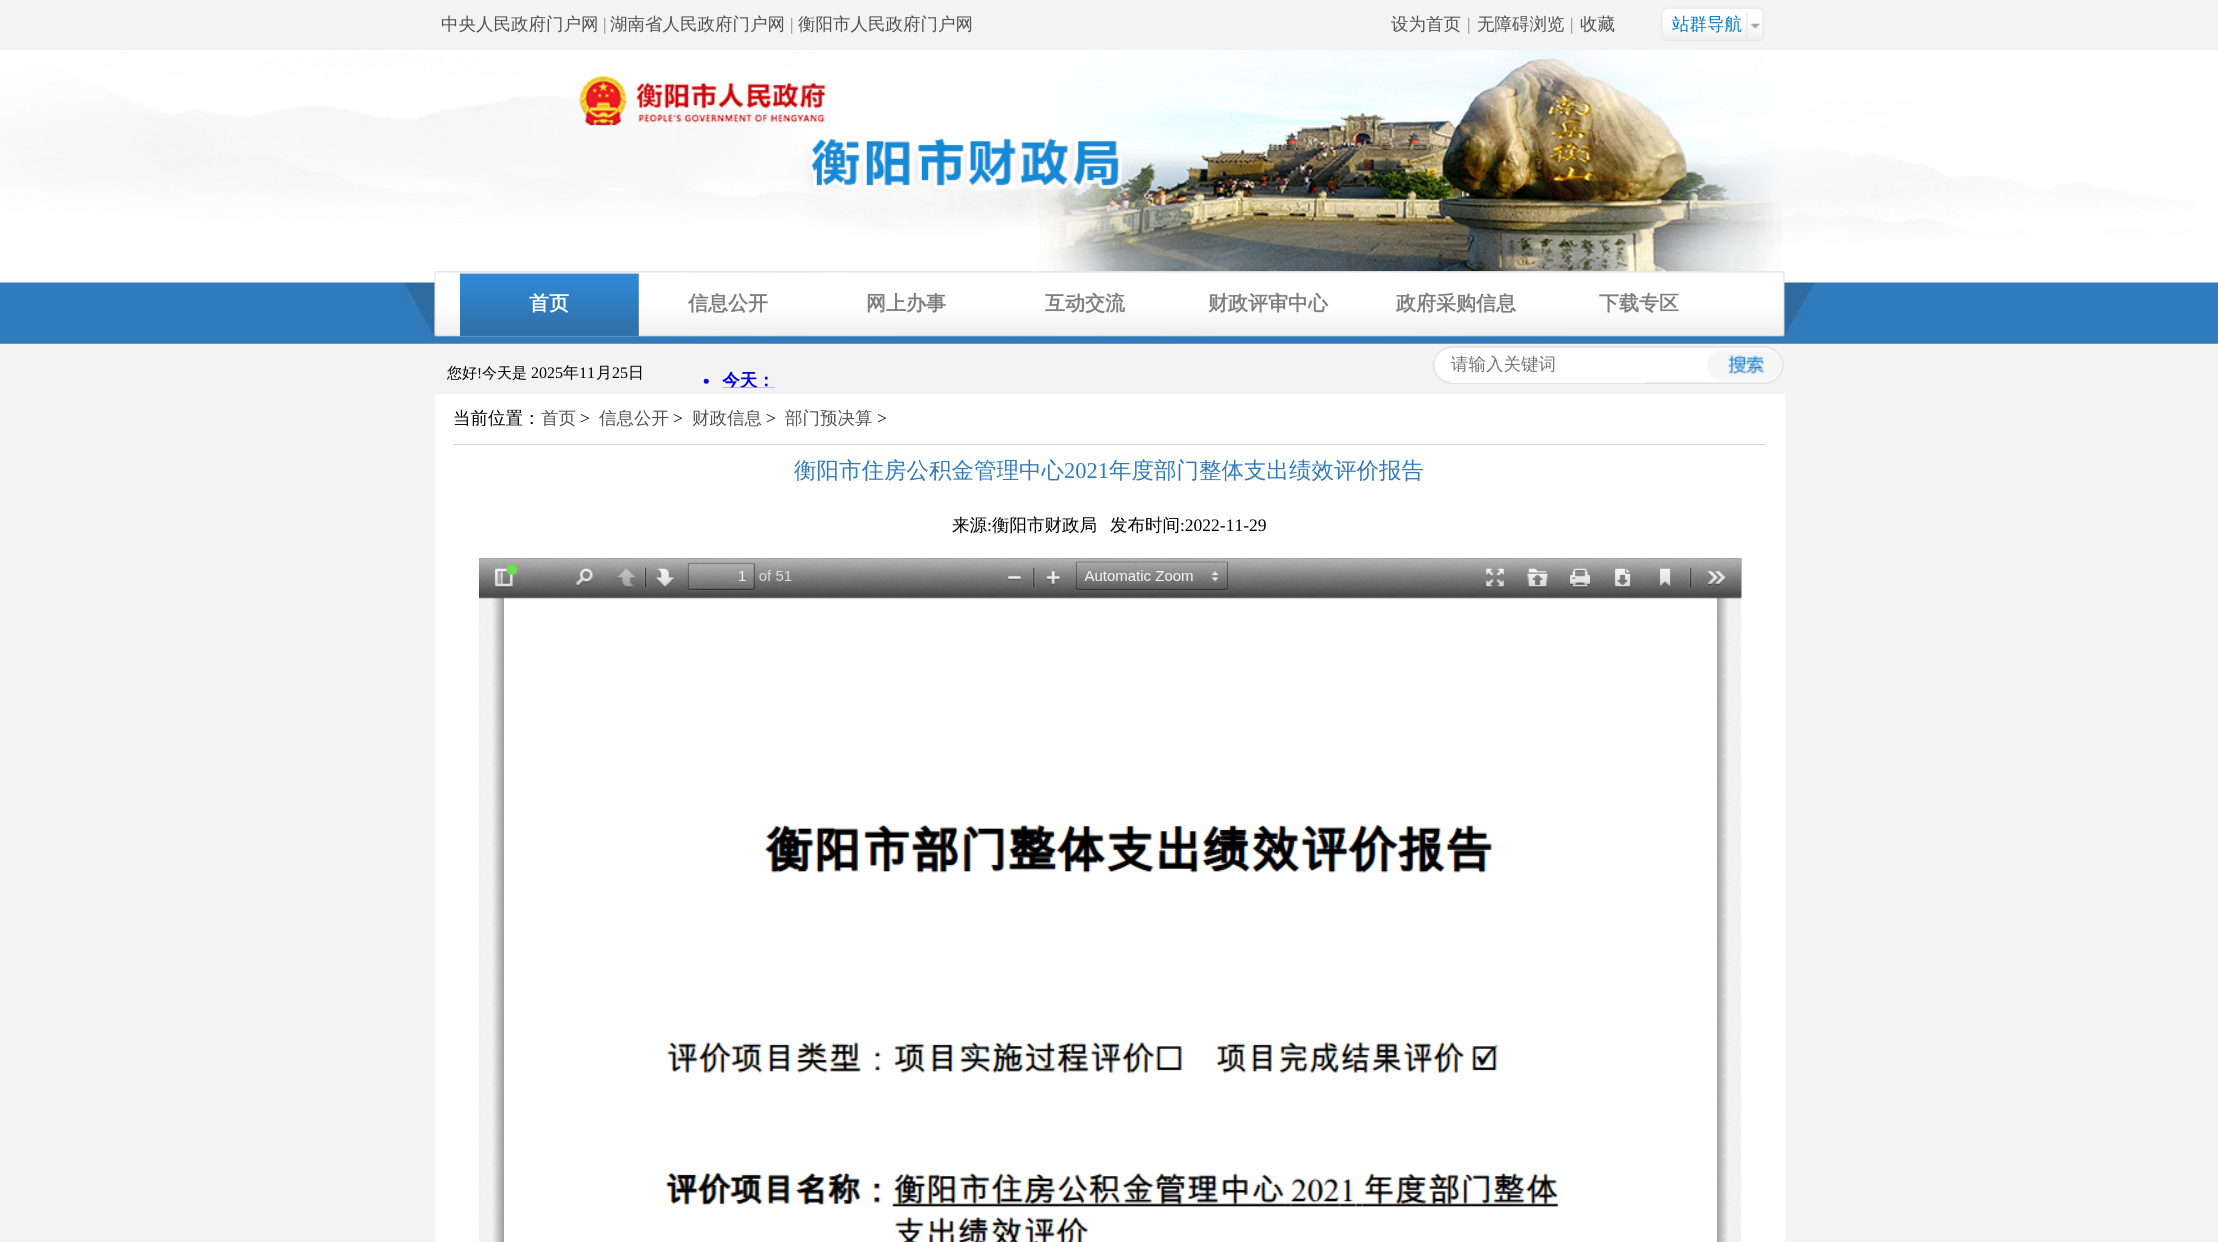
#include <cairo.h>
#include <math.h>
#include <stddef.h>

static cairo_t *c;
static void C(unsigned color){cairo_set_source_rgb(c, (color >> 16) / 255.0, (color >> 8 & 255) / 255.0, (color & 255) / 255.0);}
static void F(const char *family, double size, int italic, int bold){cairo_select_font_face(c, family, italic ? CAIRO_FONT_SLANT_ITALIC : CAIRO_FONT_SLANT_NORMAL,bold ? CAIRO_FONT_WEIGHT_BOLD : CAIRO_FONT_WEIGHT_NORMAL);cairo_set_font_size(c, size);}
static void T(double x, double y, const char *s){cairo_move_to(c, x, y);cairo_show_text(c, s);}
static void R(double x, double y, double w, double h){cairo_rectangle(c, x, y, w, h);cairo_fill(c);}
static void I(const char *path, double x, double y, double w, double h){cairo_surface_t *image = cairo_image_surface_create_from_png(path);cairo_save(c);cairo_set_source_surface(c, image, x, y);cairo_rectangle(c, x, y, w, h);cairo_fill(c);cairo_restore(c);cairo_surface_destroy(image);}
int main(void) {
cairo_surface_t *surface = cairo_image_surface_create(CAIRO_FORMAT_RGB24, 2218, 1242);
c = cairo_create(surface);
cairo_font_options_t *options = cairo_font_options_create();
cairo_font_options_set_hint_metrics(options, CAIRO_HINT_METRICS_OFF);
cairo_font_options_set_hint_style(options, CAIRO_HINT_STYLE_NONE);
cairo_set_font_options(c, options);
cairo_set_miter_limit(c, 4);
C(0xf3f3f3);
cairo_paint(c);
F("WenQuanYi Zen Hei Medium",17.5,0,0);
C(0x515151);
T(441,30,"中央人民政府门户网");
F("Liberation Serif",17.5,0,0);
C(0x7f7f7f);
T(603,30,"|");
F("WenQuanYi Zen Hei Medium",17.5,0,0);
C(0x515151);
T(610,30,"湖南省人民政府门户网");
F("Liberation Serif",17.5,0,0);
C(0x7f7f7f);
T(790,30,"|");
F("WenQuanYi Zen Hei Medium",17.5,0,0);
C(0x515151);
T(798,30,"衡阳市人民政府门户网");
T(1391,30,"设为首页");
F("Liberation Serif",17.5,0,0);
C(0x7f7f7f);
T(1467,30,"|");
F("WenQuanYi Zen Hei Medium",17.5,0,0);
C(0x515151);
T(1477,30,"无障碍浏览");
F("Liberation Serif",17.5,0,0);
C(0x7f7f7f);
T(1570,30,"|");
F("WenQuanYi Zen Hei Medium",17.5,0,0);
C(0x515151);
T(1580,30,"收藏");
I("1.png",1661,7,103,34);
C(0x007bc6);
T(1672,30,"站群导航");
I("2.png",0,50,2218,222);
I("3.png",0,271,2218,73);
I("4.png",460,272,179,65);
F("WenQuanYi Zen Hei",20,0,1);
C(0xffffff);
T(529,310,"首页");
C(0x7f7f7f);
T(688,310,"信息公开");
T(866,310,"网上办事");
T(1045,310,"互动交流");
T(1208,310,"财政评审中心");
T(1396,310,"政府采购信息");
T(1599,310,"下载专区");
F("WenQuanYi Zen Hei Medium",15,0,0);
C(0x000000);
T(447,378,"您好");
F("Liberation Serif",15,0,0);
T(477,378,"!");
F("WenQuanYi Zen Hei Medium",15,0,0);
T(482,378,"今天是");
F("Liberation Serif",16,0,0);
T(531,378,"2025");
F("WenQuanYi Zen Hei Medium",16,0,0);
T(563,378,"年");
F("Liberation Serif",16,0,0);
T(579,378,"11");
F("WenQuanYi Zen Hei Medium",16,0,0);
T(596,378,"月");
F("Liberation Serif",16,0,0);
T(612,378,"25");
F("WenQuanYi Zen Hei Medium",16,0,0);
T(628,378,"日");
I("5.png",703,371,72,17);
I("6.png",1432,346,352,38);
C(0xffffff);
R(1451,348,194,35);
F("WenQuanYi Zen Hei Medium",17.5,0,0);
C(0x757575);
T(1451,370,"请输入关键词");
I("7.png",1724,349,57,29);
C(0xffffff);
R(435,394,1350,848);
C(0xd9d9d9);
R(454,444,1312,1);
C(0x000000);
T(453,424,"当前位置：");
C(0x515151);
T(541,424,"首页");
F("Liberation Serif",17.5,0,0);
C(0x000000);
T(580,424,">");
F("WenQuanYi Zen Hei Medium",17.5,0,0);
C(0x515151);
T(599,424,"信息公开");
F("Liberation Serif",17.5,0,0);
C(0x000000);
T(673,424,">");
F("WenQuanYi Zen Hei Medium",17.5,0,0);
C(0x515151);
T(692,424,"财政信息");
F("Liberation Serif",17.5,0,0);
C(0x000000);
T(766,424,">");
F("WenQuanYi Zen Hei Medium",17.5,0,0);
C(0x515151);
T(785,424,"部门预决算");
F("Liberation Serif",17.5,0,0);
C(0x000000);
T(877,424,">");
F("WenQuanYi Zen Hei Medium",22.5,0,0);
C(0x307bbb);
T(794,478,"衡阳市住房公积金管理中心");
F("Liberation Serif",22.5,0,0);
T(1064,478,"2021");
F("WenQuanYi Zen Hei Medium",22.5,0,0);
T(1109,478,"年度部门整体支出绩效评价报告");
F("WenQuanYi Zen Hei Medium",17.5,0,0);
C(0x000000);
T(952,531,"来源");
F("Liberation Serif",17.5,0,0);
T(987,531,":");
F("WenQuanYi Zen Hei Medium",17.5,0,0);
T(992,531,"衡阳市财政局");
T(1110,531,"发布时间");
F("Liberation Serif",17.5,0,0);
T(1180,531,":2022-11-29");
I("8.png",479,558,1263,684);
cairo_surface_write_to_png(surface, "o.png");
cairo_font_options_destroy(options);
cairo_destroy(c);
cairo_surface_destroy(surface);
return 0;
}
